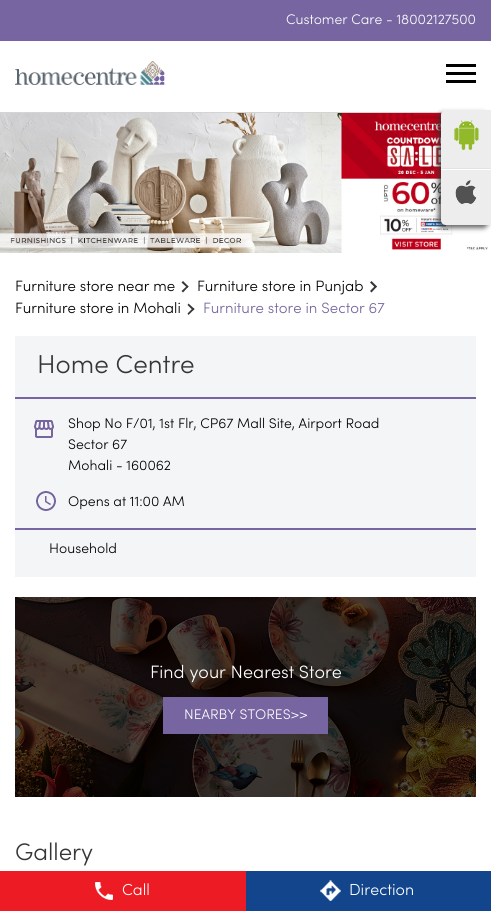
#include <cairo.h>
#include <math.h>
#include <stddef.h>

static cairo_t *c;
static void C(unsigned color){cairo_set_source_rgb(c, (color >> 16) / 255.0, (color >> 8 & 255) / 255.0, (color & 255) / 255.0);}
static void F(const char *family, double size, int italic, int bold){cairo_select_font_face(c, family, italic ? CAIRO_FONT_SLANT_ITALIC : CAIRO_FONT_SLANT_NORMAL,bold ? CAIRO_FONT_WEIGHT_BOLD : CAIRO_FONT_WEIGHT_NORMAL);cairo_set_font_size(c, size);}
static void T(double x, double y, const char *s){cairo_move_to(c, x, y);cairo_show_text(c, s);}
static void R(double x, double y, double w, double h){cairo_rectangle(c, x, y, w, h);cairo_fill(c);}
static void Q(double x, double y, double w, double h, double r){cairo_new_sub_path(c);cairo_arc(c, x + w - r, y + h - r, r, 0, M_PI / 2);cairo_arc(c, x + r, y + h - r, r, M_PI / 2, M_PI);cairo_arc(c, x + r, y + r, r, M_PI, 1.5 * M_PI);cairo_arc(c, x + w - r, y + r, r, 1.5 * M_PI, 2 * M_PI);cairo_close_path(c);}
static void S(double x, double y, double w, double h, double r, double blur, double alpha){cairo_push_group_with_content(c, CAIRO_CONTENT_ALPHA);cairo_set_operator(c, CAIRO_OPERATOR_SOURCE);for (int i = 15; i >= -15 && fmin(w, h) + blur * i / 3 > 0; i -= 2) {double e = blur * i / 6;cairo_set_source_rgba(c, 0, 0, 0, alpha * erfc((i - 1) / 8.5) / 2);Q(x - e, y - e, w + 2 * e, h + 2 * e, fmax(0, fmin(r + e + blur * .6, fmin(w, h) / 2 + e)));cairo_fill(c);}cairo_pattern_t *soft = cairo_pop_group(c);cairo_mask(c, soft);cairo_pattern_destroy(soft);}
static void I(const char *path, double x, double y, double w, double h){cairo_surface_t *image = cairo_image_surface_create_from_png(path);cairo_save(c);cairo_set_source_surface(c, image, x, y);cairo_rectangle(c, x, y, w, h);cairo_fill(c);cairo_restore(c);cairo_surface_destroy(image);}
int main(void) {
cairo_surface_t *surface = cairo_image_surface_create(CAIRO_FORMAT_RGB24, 491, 911);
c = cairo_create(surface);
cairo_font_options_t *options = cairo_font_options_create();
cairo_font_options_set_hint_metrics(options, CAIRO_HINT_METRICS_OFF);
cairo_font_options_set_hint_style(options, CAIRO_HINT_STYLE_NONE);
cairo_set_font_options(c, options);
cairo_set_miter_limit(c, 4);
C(0xffffff);
cairo_paint(c);
C(0x7665a0);
R(0,0,491,41);
F("Sofia Light",14,0,0);
C(0xffffff);
T(286,24,"Customer Care - 18002127500");
C(0xd4d4d4);
R(0,112,442,1);
I("1.png",15,61,150,24);
C(0x000000);
R(446,72,30,3);
R(446,64,30,3);
R(446,80,30,3);
I("4.png",0,113,491,140);
C(0x323232);
S(438,113,50,115,5,2.5,.75);
C(0xededed);
cairo_new_path(c);
cairo_move_to(c,446,110);
cairo_line_to(c,491,110);
cairo_line_to(c,491,225);
cairo_line_to(c,446,225);
cairo_curve_to(c,443,225,441,223,441,220);
cairo_line_to(c,441,115);
cairo_curve_to(c,441,112,443,110,446,110);
cairo_close_path(c);
cairo_fill(c);
C(0xe3e3e3);
R(441,168,50,1);
I("2.png",454,120,25,30);
C(0xffffff);
R(441,169,50,1);
I("3.png",455,180,22,24);
F("Sofia Light",15,0,0);
C(0x000000);
T(15,291,"Furniture store near me");
C(0x363636);
cairo_new_path(c);
cairo_move_to(c,181.5,282.5);
cairo_line_to(c,183,281);
cairo_line_to(c,188.5,286.5);
cairo_line_to(c,187.5,288);
cairo_close_path(c);
cairo_fill(c);
cairo_new_path(c);
cairo_move_to(c,181.5,291);
cairo_line_to(c,187.5,285.5);
cairo_line_to(c,188.5,286.5);
cairo_line_to(c,183,292.5);
cairo_close_path(c);
cairo_fill(c);
C(0x000000);
T(197,291,"Furniture store in Punjab");
C(0x363636);
cairo_new_path(c);
cairo_move_to(c,370,282.5);
cairo_line_to(c,371.5,281);
cairo_line_to(c,377,286.5);
cairo_line_to(c,375.5,288);
cairo_close_path(c);
cairo_fill(c);
cairo_new_path(c);
cairo_move_to(c,370,291);
cairo_line_to(c,375.5,285.5);
cairo_line_to(c,377,286.5);
cairo_line_to(c,371.5,292.5);
cairo_close_path(c);
cairo_fill(c);
C(0x000000);
T(15,313,"Furniture store in Mohali");
C(0x363636);
cairo_new_path(c);
cairo_move_to(c,187.5,305);
cairo_line_to(c,188.5,303.5);
cairo_line_to(c,194.5,309);
cairo_line_to(c,193,310.5);
cairo_close_path(c);
cairo_fill(c);
cairo_new_path(c);
cairo_move_to(c,187.5,313.5);
cairo_line_to(c,193,308);
cairo_line_to(c,194.5,309);
cairo_line_to(c,188.5,315);
cairo_close_path(c);
cairo_fill(c);
C(0x7665a0);
T(203,313,"Furniture store in Sector 67");
C(0xf4f5f7);
R(15,336,461,241);
C(0x7665a0);
R(15,397,461,2);
F("Sofia Light",26,0,0);
C(0x363636);
T(37,373,"Home Centre");
I("5.png",34,420,20,18);
F("Sofia Light",14,0,0);
C(0x000000);
T(68,428,"Shop No F/01, 1st Flr, CP67 Mall Site, Airport Road");
T(68,449,"Sector 67");
T(68,470,"Mohali - 160062");
I("6.png",36,491,20,20);
T(68,506,"Opens at 11:00 AM");
C(0x7665a0);
R(15,528,461,2);
C(0x000000);
T(49,553,"Household");
C(0xed1b24);
R(0,871,246,40);
I("7.png",95,882,18,18);
F("Sofia Light",16,0,0);
C(0xffffff);
T(122,895,"Call");
C(0x12458c);
R(246,871,245,40);
I("8.png",320,880,21,21);
C(0xffffff);
T(349,895,"Direction");
I("9.png",15,597,461,200);
F("Sofia Light",18,0,0);
T(150,678,"Find your Nearest Store");
C(0x7665a0);
R(163,697,165,37);
F("Sofia Light",14,0,0);
C(0xffffff);
T(184,719,"NEARBY STORES>>");
F("Sofia Light",24,0,0);
C(0x363636);
T(15,860,"Gallery");
cairo_surface_write_to_png(surface, "o.png");
cairo_font_options_destroy(options);
cairo_destroy(c);
cairo_surface_destroy(surface);
return 0;
}
